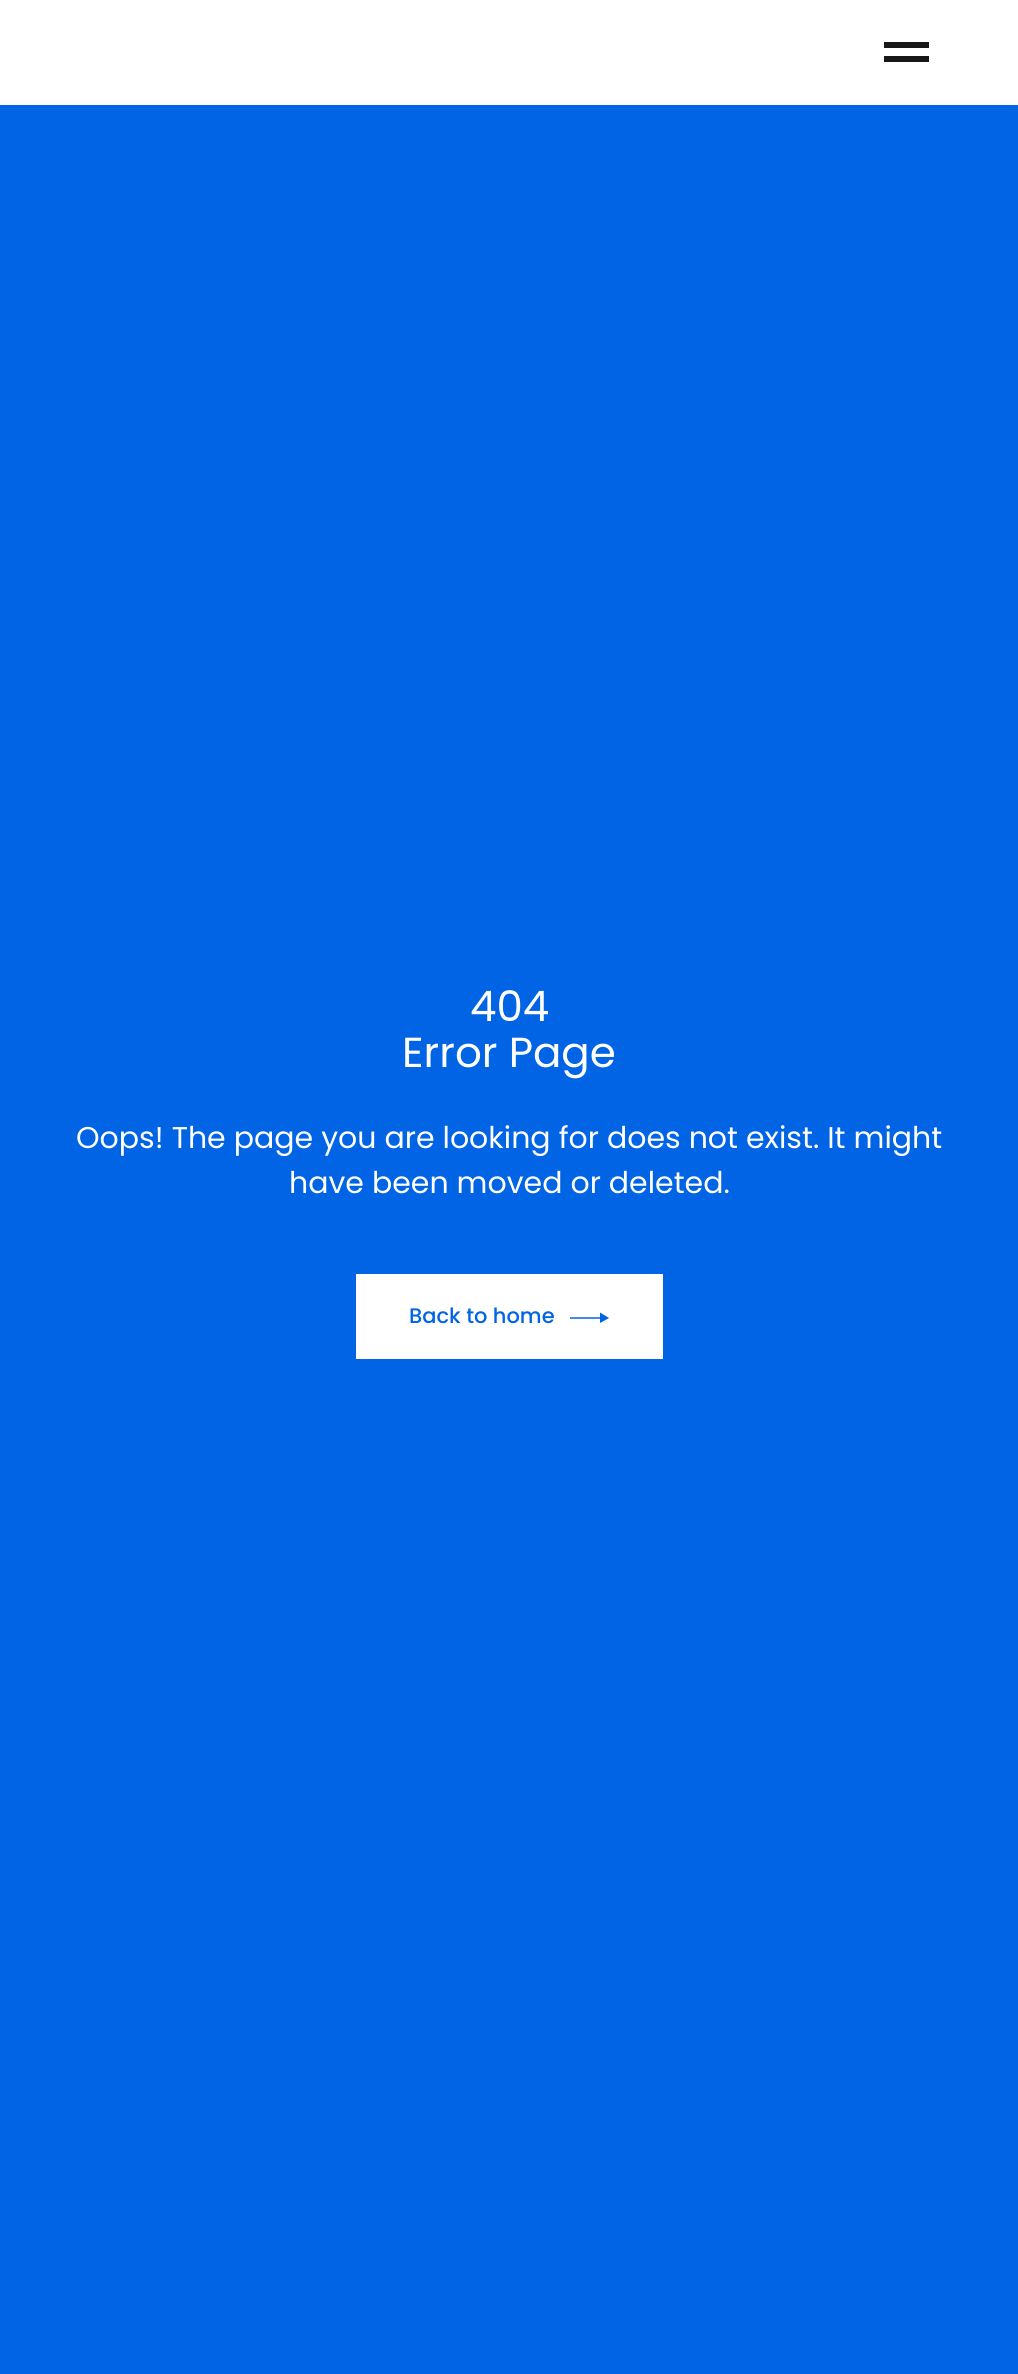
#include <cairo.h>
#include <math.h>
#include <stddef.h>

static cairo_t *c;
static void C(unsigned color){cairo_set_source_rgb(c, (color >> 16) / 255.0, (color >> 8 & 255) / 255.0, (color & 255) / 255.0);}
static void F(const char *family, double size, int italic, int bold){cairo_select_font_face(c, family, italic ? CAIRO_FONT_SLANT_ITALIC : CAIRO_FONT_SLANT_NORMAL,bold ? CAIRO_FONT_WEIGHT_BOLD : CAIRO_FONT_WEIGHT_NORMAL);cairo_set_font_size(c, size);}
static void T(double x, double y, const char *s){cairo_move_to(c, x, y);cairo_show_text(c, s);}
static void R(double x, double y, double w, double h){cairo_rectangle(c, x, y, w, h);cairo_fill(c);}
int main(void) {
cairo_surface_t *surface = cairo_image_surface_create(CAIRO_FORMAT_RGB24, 1018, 2374);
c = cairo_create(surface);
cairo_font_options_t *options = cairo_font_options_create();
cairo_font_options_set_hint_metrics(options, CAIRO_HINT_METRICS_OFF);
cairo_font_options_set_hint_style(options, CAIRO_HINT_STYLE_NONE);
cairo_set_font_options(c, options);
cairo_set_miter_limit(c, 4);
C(0xffffff);
cairo_paint(c);
C(0x171717);
R(884,42,45,6);
R(884,56,45,6);
C(0x0064e5);
R(0,105,1018,2269);
F("Poppins",42,0,0);
C(0xffffff);
T(470,1021,"404");
T(402,1067,"Error Page");
F("Poppins",30,0,0);
T(76,1148,"Oops! The page you are looking for does not exist. It might");
T(289,1193,"have been moved or deleted.");
R(356,1274,307,85);
F("Poppins Medium",21,0,0);
C(0x0064e5);
T(409,1323,"Back to home");
C(0x408bec);
R(570,1317,30,2);
C(0x0064e5);
cairo_new_path(c);
cairo_move_to(c,609,1318);
cairo_line_to(c,600,1323);
cairo_line_to(c,600,1312.5);
cairo_close_path(c);
cairo_fill(c);
cairo_surface_write_to_png(surface, "o.png");
cairo_font_options_destroy(options);
cairo_destroy(c);
cairo_surface_destroy(surface);
return 0;
}
